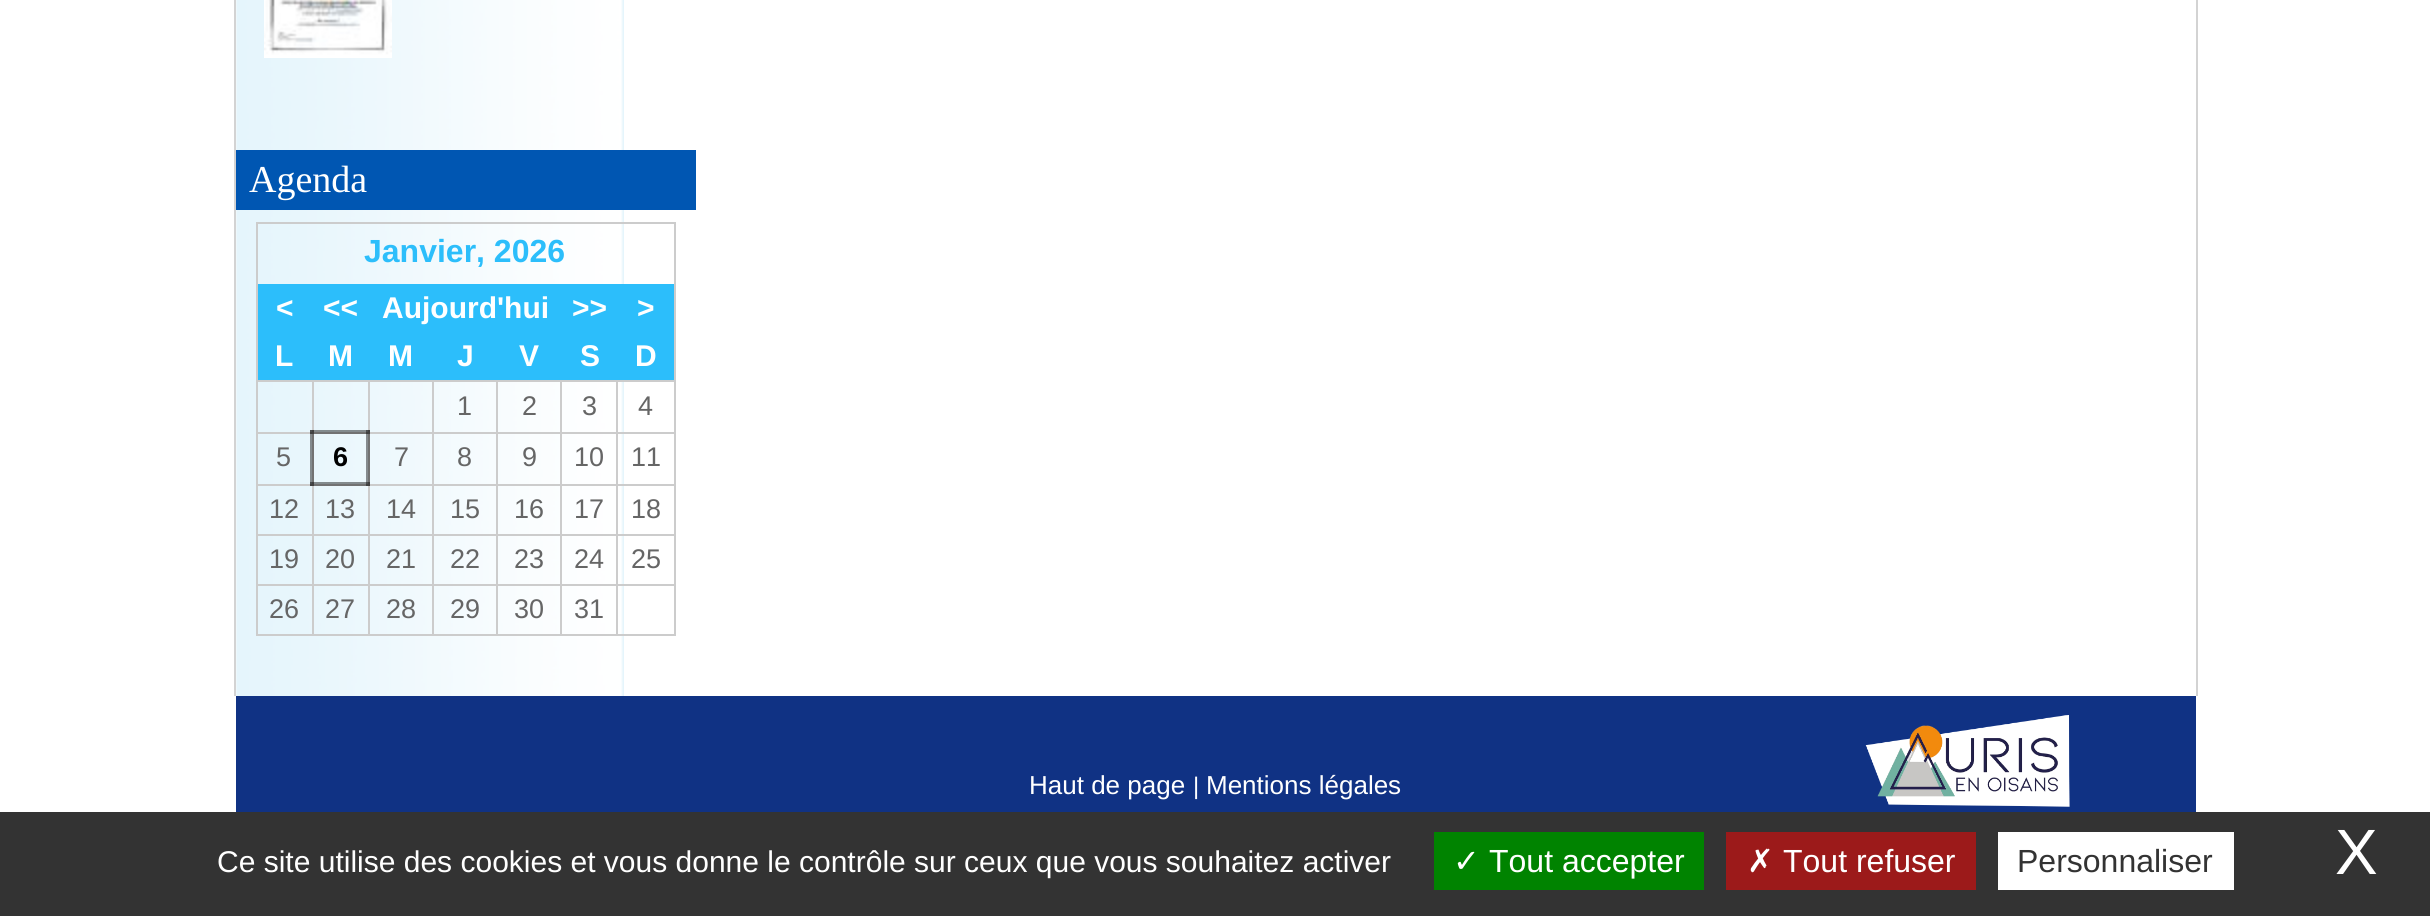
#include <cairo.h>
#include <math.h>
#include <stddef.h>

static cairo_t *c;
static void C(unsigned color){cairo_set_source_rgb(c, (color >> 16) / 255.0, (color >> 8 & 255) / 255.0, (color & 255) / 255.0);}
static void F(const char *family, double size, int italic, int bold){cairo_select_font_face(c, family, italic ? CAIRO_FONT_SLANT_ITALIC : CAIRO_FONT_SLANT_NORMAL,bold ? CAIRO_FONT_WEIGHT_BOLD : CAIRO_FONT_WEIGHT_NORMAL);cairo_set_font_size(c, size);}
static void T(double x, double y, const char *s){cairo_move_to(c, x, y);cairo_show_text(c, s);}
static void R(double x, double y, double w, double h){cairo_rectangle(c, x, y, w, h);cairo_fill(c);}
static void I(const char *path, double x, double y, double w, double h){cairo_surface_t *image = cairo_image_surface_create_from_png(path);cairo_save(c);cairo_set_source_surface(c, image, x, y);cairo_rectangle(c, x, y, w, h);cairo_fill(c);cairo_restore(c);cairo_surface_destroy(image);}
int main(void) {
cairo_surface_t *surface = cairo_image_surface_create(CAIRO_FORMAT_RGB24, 2430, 916);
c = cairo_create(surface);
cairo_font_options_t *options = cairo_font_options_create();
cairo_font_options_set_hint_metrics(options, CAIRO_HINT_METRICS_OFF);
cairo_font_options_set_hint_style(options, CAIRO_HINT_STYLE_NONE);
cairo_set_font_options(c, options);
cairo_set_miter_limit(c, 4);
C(0xffffff);
cairo_paint(c);
C(0xd3d3d3);
R(2196,0,2,696);
R(234,0,2,696);
I("1.png",236,0,388,696);
I("2.png",264,0,128,58);
C(0x0056b2);
R(236,150,460,60);
F("Liberation Serif",38,0,0);
C(0xffffff);
T(249,192,"Agenda");
C(0xcccccc);
R(256,222,420,2);
R(674,222,2,414);
R(256,634,420,2);
R(256,222,2,414);
F("Liberation Sans",32,0,1);
C(0x2cbefb);
T(364,262,"Janvier, 2026");
R(258,284,416,48);
F("Liberation Sans",30,0,1);
C(0xffffff);
T(276,318,"<");
T(323,318,"<<");
T(382,318,"Aujourd'hui");
T(572,318,">>");
T(637,318,">");
C(0x2cbefb);
R(258,332,416,48);
C(0xffffff);
T(275,366,"L");
T(328,366,"M");
T(388,366,"M");
T(457,366,"J");
T(519,366,"V");
T(580,366,"S");
T(635,366,"D");
C(0xcccccc);
R(616,380,60,2);
R(616,432,60,2);
R(616,484,60,2);
R(616,534,60,2);
R(616,584,60,2);
R(616,584,2,52);
R(560,584,58,2);
R(616,534,2,52);
R(560,534,58,2);
R(616,484,2,52);
R(560,484,58,2);
R(616,432,2,54);
R(560,432,58,2);
R(616,380,2,54);
R(560,380,58,2);
R(560,584,2,52);
R(496,584,66,2);
R(560,534,2,52);
R(496,534,66,2);
R(560,484,2,52);
R(496,484,66,2);
R(560,432,2,54);
R(496,432,66,2);
R(560,380,2,54);
R(496,380,66,2);
R(496,584,2,52);
R(432,584,66,2);
R(496,534,2,52);
R(432,534,66,2);
R(496,484,2,52);
R(432,484,66,2);
R(496,432,2,54);
R(432,432,66,2);
R(496,380,2,54);
R(432,380,66,2);
R(432,584,2,52);
R(368,584,66,2);
R(432,534,2,52);
R(368,534,66,2);
R(432,484,2,52);
R(368,484,66,2);
R(432,432,2,54);
R(368,432,66,2);
R(432,380,2,54);
R(368,380,66,2);
R(368,584,2,52);
R(312,584,58,2);
R(368,534,2,52);
R(312,534,58,2);
R(368,484,2,52);
R(312,484,58,2);
R(368,432,2,54);
R(368,380,2,54);
R(312,380,58,2);
R(256,432,58,2);
R(312,584,2,52);
R(256,584,58,2);
R(312,534,2,52);
R(256,534,58,2);
R(312,484,2,52);
R(256,484,58,2);
R(312,432,2,54);
R(312,432,58,2);
R(312,380,2,54);
R(256,380,58,2);
F("Liberation Sans",27,0,0);
C(0x666666);
T(457,415,"1");
T(522,415,"2");
T(582,415,"3");
T(638,415,"4");
T(276,466,"5");
cairo_set_source_rgba(c,0,0,0,0.44);
R(310,430,60,4);
R(366,430,4,56);
R(310,482,60,4);
R(310,430,4,56);
F("Liberation Sans",27,0,1);
C(0x000000);
T(333,466,"6");
F("Liberation Sans",27,0,0);
C(0x666666);
T(394,466,"7");
T(457,466,"8");
T(522,466,"9");
T(574,466,"10");
T(631,466,"11");
T(269,518,"12");
T(325,518,"13");
T(386,518,"14");
T(450,518,"15");
T(514,518,"16");
T(574,518,"17");
T(631,518,"18");
T(269,568,"19");
T(325,568,"20");
T(386,568,"21");
T(450,568,"22");
T(514,568,"23");
T(574,568,"24");
T(631,568,"25");
T(269,618,"26");
T(325,618,"27");
T(386,618,"28");
T(450,618,"29");
T(514,618,"30");
T(574,618,"31");
C(0x103284);
R(236,696,1960,116);
F("Liberation Sans",26,0,0);
C(0xffffff);
T(1029,794,"Haut de page");
F("Liberation Sans",24,0,0);
T(1193,794,"|");
F("Liberation Sans",26,0,0);
T(1206,794,"Mentions légales");
I("3.png",1865,715,205,92);
C(0x333333);
R(0,812,2430,104);
F("Liberation Sans",30,0,0);
C(0xffffff);
T(217,872,"Ce site utilise des cookies et vous donne le contrôle sur ceux que vous souhaitez activer");
C(0x008300);
R(1434,832,270,58);
F("DejaVu Sans",32,0,0);
C(0xffffff);
T(1453,872,"✓");
F("Liberation Sans",32,0,0);
T(1489,872,"Tout accepter");
C(0x9c1a1a);
R(1726,832,250,58);
F("DejaVu Sans",32,0,0);
C(0xffffff);
T(1747,872,"✗");
F("Liberation Sans",32,0,0);
T(1783,872,"Tout refuser");
R(1998,832,236,58);
C(0x333333);
T(2017,872,"Personnaliser");
F("Liberation Sans",64,0,0);
C(0xffffff);
T(2335,874,"X");
cairo_surface_write_to_png(surface, "o.png");
cairo_font_options_destroy(options);
cairo_destroy(c);
cairo_surface_destroy(surface);
return 0;
}
